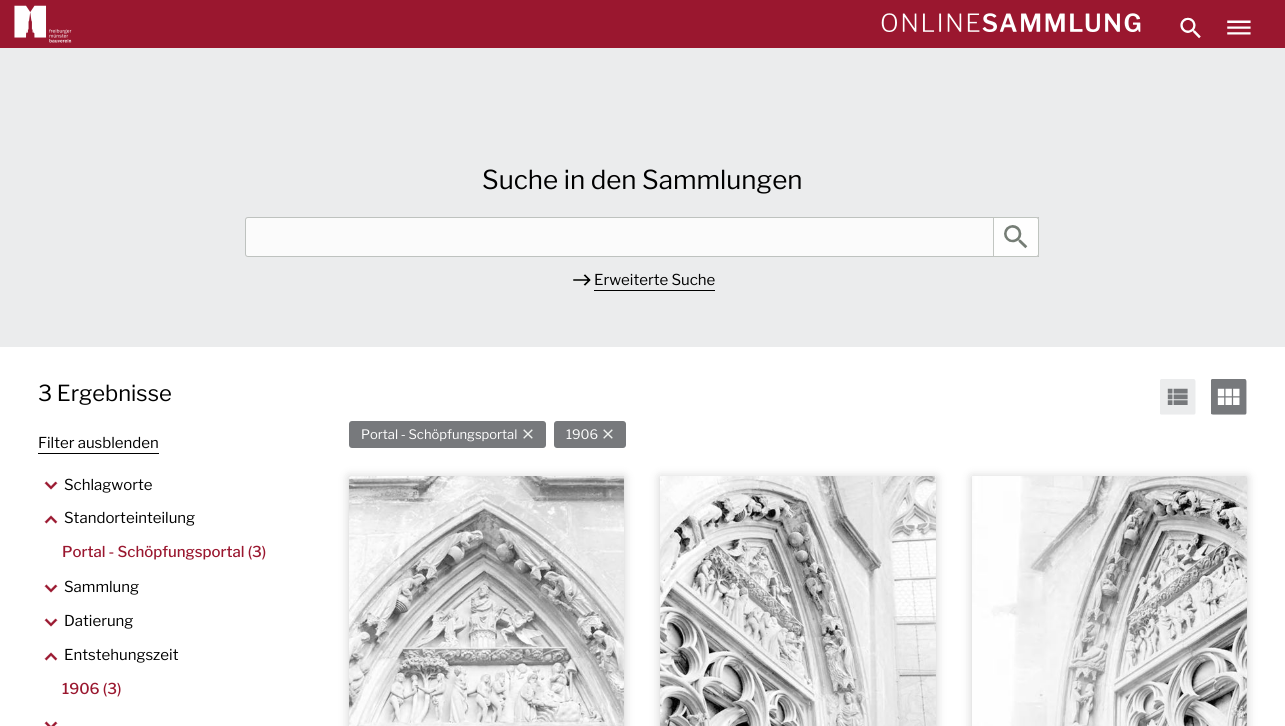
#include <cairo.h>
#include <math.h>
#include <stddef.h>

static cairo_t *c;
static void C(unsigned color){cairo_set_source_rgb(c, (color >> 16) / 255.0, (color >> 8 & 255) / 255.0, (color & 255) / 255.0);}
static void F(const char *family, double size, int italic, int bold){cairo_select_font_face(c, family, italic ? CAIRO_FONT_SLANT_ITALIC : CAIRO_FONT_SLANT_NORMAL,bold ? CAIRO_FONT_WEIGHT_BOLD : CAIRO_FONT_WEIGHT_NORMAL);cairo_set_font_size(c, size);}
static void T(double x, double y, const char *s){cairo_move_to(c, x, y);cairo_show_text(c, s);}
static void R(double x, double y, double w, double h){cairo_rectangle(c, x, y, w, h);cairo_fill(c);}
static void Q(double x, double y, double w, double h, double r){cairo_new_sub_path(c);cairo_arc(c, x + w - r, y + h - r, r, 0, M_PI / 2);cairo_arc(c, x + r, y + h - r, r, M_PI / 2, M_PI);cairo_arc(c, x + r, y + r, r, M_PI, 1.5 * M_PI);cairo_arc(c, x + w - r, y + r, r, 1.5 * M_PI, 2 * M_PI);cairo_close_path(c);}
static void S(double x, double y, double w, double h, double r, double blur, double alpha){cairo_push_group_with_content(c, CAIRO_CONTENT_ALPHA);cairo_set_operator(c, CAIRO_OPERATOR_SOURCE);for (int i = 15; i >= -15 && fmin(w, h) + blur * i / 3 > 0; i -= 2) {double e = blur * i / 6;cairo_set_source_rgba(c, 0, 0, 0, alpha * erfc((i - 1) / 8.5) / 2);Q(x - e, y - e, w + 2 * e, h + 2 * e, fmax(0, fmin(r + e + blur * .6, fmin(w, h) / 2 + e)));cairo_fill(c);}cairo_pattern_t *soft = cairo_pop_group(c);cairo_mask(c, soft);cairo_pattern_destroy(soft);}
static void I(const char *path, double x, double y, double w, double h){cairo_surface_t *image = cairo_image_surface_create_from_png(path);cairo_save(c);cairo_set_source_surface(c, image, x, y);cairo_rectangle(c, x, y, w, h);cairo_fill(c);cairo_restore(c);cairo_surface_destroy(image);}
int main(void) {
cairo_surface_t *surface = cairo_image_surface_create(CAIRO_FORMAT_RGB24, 1285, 726);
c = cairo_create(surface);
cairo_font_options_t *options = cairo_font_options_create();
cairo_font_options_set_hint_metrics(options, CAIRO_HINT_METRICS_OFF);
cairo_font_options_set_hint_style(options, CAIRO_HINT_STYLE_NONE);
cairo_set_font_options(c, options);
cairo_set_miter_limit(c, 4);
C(0xffffff);
cairo_paint(c);
C(0x9a172f);
R(0,0,1285,48);
I("1.png",14,5,58,38);
I("2.png",881,13,260,19);
I("3.png",1180,17,21,22);
I("4.png",1227,20,24,15);
C(0xebeced);
R(0,48,1285,299);
F("Libre Franklin",26,0,0);
C(0x000000);
T(482,189,"Suche in den Sammlungen");
C(0xfbfbfb);
cairo_new_path(c);
cairo_move_to(c,248,217.5);
cairo_line_to(c,1038.5,217.5);
cairo_line_to(c,1038.5,256.5);
cairo_line_to(c,248,256.5);
cairo_curve_to(c,246.5,256.5,245.5,255.5,245.5,254);
cairo_line_to(c,245.5,220);
cairo_curve_to(c,245.5,218.5,246.5,217.5,248,217.5);
cairo_close_path(c);
cairo_fill_preserve(c);
C(0xbec2bf);
cairo_set_line_width(c,1);
cairo_stroke(c);
cairo_set_source_rgba(c,1,1,1,0.8);
cairo_new_path(c);
cairo_move_to(c,993,217);
cairo_line_to(c,1036,217);
cairo_curve_to(c,1037.5,217,1039,218.5,1039,220);
cairo_line_to(c,1039,254);
cairo_curve_to(c,1039,255.5,1037.5,257,1036,257);
cairo_line_to(c,993,257);
cairo_close_path(c);
cairo_fill(c);
cairo_new_path(c);
cairo_move_to(c,993.5,217.5);
cairo_line_to(c,1036,217.5);
cairo_curve_to(c,1037.5,217.5,1038.5,218.5,1038.5,220);
cairo_line_to(c,1038.5,254);
cairo_curve_to(c,1038.5,255.5,1037.5,256.5,1036,256.5);
cairo_line_to(c,993.5,256.5);
cairo_close_path(c);
cairo_set_source_rgba(c,0.702,0.722,0.702,0.8);
cairo_stroke(c);
I("5.png",1004,225,24,24);
I("6.png",573,274,18,12);
F("Libre Franklin",15,0,0);
C(0x000000);
T(594,285,"Erweiterte Suche");
R(594,290,121,1);
F("Libre Franklin",22,0,0);
T(38,401,"3 Ergebnisse");
F("Libre Franklin",15,0,0);
T(38,448,"Filter ausblenden");
R(38,453,121,1);
I("7.png",1160,379,36,36);
I("8.png",1211,379,36,36);
C(0x77797c);
Q(349,421,197,27,3);
cairo_fill(c);
F("Libre Franklin",13,0,0);
C(0xffffff);
T(361,439,"Portal - Schöpfungsportal");
I("9.png",523,429,10,10);
C(0x77797c);
Q(554,421,72,27,3);
cairo_fill(c);
C(0xffffff);
T(566,439,"1906");
I("9.png",603,429,10,10);
I("10.png",44,481,14,9);
F("Libre Franklin",15,0,0);
C(0x000000);
T(64,490,"Schlagworte");
I("11.png",44,515,14,9);
T(64,523,"Standorteinteilung");
F("Libre Franklin Medium",15,0,0);
C(0x9a172f);
T(62,557,"Portal - Schöpfungsportal (3)");
I("10.png",44,584,14,9);
F("Libre Franklin",15,0,0);
C(0x000000);
T(64,592,"Sammlung");
I("10.png",44,618,14,9);
T(64,626,"Datierung");
I("11.png",44,652,14,9);
T(64,660,"Entstehungszeit");
F("Libre Franklin Medium",15,0,0);
C(0x9a172f);
T(62,694,"1906 (3)");
I("12.png",44,721,14,5);
C(0x000000);
S(349,477,275,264,0,5,.2);
I("13.png",349,476,275,250);
S(660,477,276,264,0,5,.2);
I("14.png",660,476,276,250);
S(972,477,275,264,0,5,.2);
I("15.png",972,476,275,250);
cairo_surface_write_to_png(surface, "o.png");
cairo_font_options_destroy(options);
cairo_destroy(c);
cairo_surface_destroy(surface);
return 0;
}
